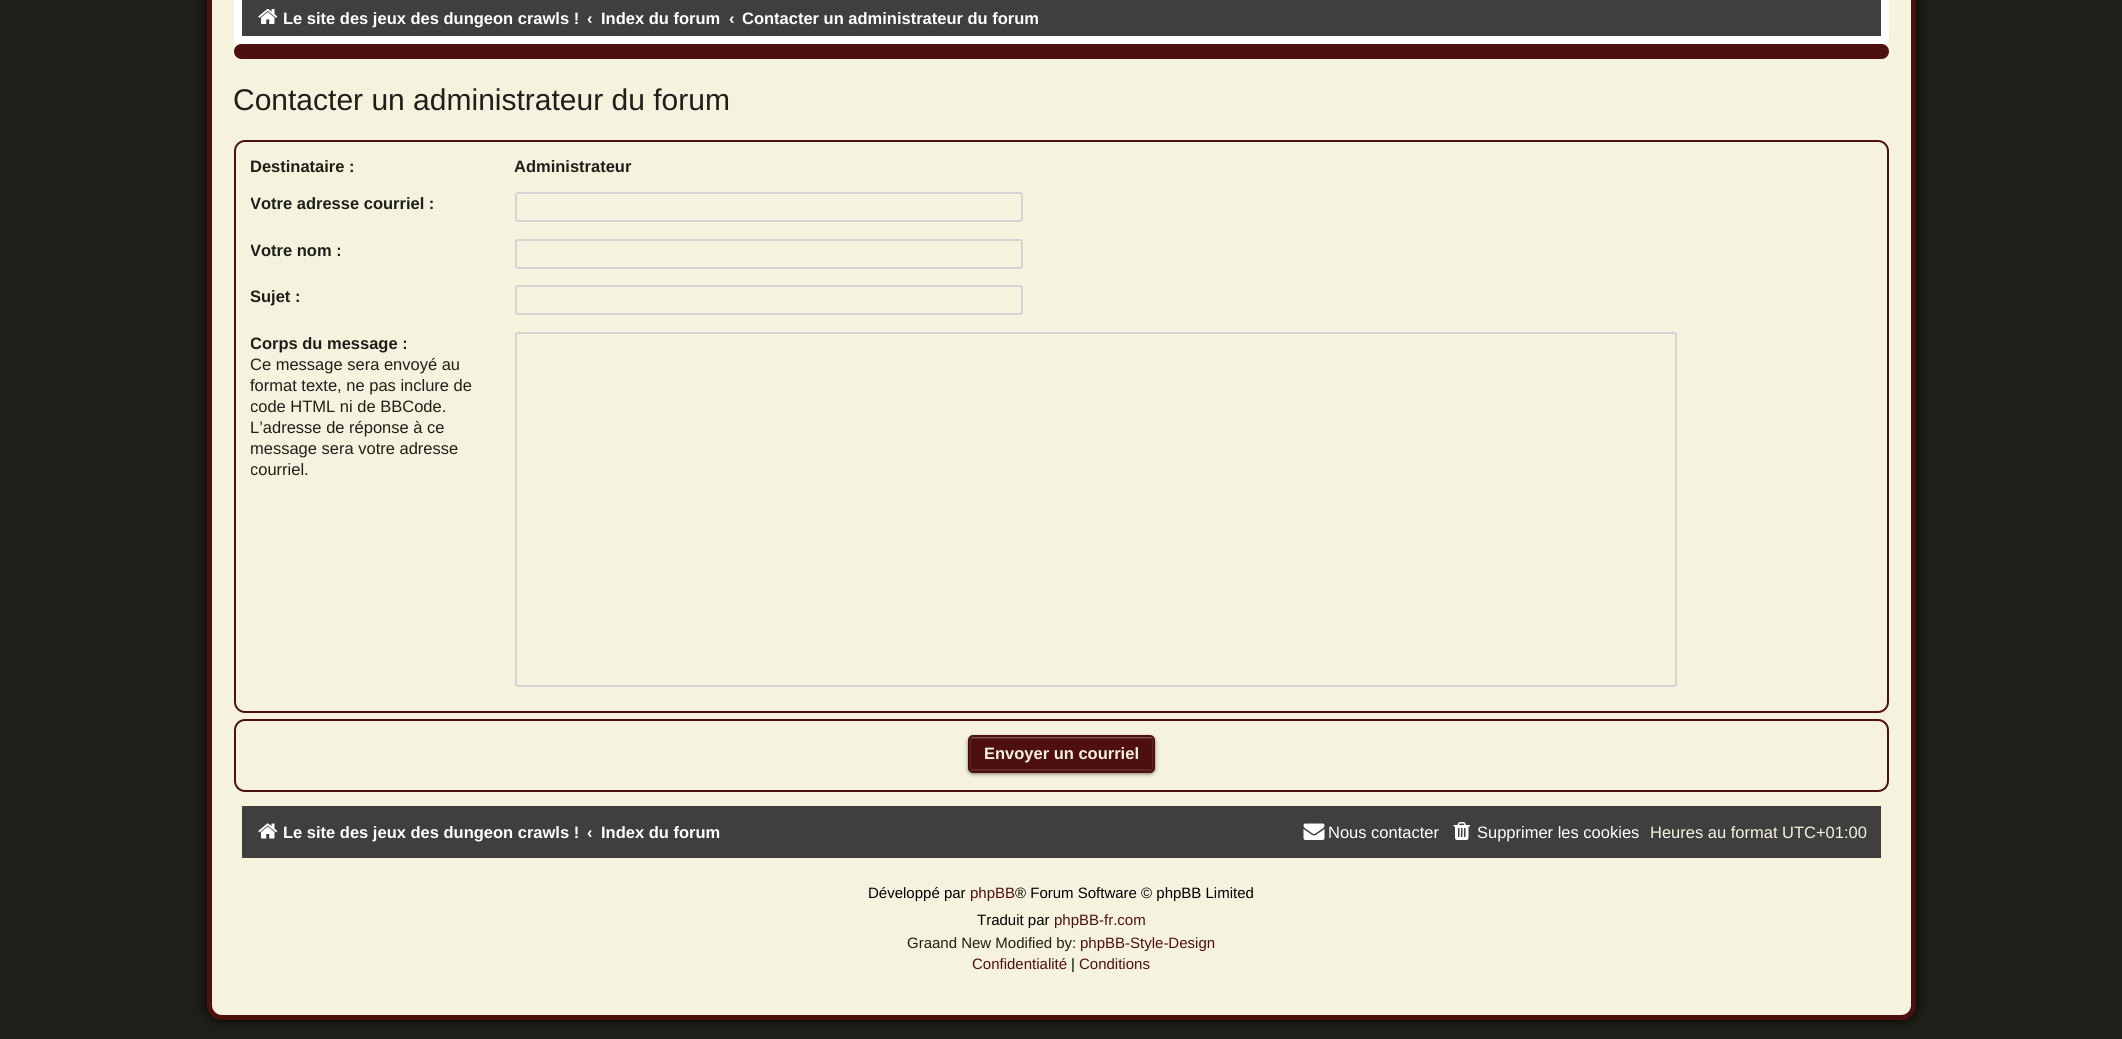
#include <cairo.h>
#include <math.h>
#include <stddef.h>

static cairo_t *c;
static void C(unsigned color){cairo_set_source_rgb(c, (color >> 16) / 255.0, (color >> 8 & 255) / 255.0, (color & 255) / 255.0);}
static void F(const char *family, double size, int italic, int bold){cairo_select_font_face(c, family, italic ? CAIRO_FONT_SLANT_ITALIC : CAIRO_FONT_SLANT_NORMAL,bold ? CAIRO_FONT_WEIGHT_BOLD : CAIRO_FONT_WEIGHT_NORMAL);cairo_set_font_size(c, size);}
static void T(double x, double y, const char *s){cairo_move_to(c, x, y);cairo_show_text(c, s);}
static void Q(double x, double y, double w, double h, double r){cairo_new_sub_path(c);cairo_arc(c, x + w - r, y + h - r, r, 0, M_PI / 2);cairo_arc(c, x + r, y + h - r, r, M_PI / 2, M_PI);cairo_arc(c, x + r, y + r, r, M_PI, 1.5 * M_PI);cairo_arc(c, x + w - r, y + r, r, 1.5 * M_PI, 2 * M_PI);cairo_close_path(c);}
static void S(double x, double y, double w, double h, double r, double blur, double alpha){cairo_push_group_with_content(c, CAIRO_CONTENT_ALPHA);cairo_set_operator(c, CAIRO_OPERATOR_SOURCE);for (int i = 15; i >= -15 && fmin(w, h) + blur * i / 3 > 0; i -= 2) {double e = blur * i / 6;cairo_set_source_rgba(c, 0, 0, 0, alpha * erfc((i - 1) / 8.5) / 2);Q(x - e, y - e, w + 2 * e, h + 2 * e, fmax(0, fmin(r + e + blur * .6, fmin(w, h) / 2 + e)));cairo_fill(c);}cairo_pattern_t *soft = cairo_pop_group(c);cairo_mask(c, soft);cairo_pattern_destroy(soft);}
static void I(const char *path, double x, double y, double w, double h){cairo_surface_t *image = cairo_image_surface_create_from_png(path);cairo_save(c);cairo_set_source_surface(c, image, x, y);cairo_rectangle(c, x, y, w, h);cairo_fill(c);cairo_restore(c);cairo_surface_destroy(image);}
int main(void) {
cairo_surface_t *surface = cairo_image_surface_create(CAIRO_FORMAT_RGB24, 2122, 1039);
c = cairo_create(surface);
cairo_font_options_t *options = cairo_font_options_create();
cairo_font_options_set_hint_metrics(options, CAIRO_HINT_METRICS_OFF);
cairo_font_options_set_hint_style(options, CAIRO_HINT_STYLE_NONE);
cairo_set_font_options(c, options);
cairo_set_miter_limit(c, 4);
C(0x1e1f18);
cairo_paint(c);
C(0x020202);
S(204,-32,1715,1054,18,4.5,.7);
C(0xf5f3dd);
cairo_new_path(c);
cairo_move_to(c,209.5,-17.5);
cairo_line_to(c,1913.5,-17.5);
cairo_line_to(c,1913.5,1005);
cairo_curve_to(c,1913.5,1012,1908,1017.5,1901,1017.5);
cairo_line_to(c,222,1017.5);
cairo_curve_to(c,215,1017.5,209.5,1012,209.5,1005);
cairo_close_path(c);
cairo_fill_preserve(c);
C(0x4e0f0f);
cairo_set_line_width(c,5);
cairo_stroke(c);
C(0x3f3f3f);
Q(238,-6,1647,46,1);
cairo_fill_preserve(c);
C(0xffffff);
cairo_set_line_width(c,8);
cairo_stroke(c);
I("1.png",258,9,20,15);
F("Liberation Sans",16.5,0,1);
T(283,24,"Le site des jeux des dungeon crawls !");
T(587,24,"‹");
T(601,24,"Index du forum");
T(729,24,"‹");
T(742,24,"Contacter un administrateur du forum");
C(0x4e0f0f);
Q(234,44,1655,15,7.5);
cairo_fill(c);
F("Liberation Sans",30,0,0);
C(0x1e1f18);
T(233,110,"Contacter un administrateur du forum");
Q(235,141,1653,571,10);
C(0x4e0f0f);
cairo_set_line_width(c,2);
cairo_stroke(c);
F("Liberation Sans",16.5,0,1);
C(0x1e1f18);
T(250,172,"Destinataire :");
T(514,172,"Administrateur");
cairo_save(c);
cairo_rectangle(c,251,186,1621,47);
cairo_clip(c);
T(250,209,"Votre adresse courriel :");
cairo_restore(c);
Q(516,193,506,28,2);
C(0xd4d4d4);
cairo_stroke(c);
cairo_save(c);
cairo_rectangle(c,251,233,1621,46);
cairo_clip(c);
C(0x1e1f18);
T(250,256,"Votre nom :");
cairo_restore(c);
Q(516,240,506,28,2);
cairo_stroke(c);
C(0x1e1f18);
T(250,302,"Sujet :");
Q(516,286,506,28,2);
C(0xd4d4d4);
cairo_stroke(c);
cairo_save(c);
cairo_rectangle(c,251,326,1621,376);
cairo_clip(c);
C(0x1e1f18);
T(250,349,"Corps du message :");
cairo_restore(c);
F("Liberation Sans",16.5,0,0);
C(0x1e1f18);
T(250,370,"Ce message sera envoyé au");
T(250,391,"format texte, ne pas inclure de");
cairo_save(c);
cairo_rectangle(c,251,326,1621,376);
cairo_clip(c);
T(250,412,"code HTML ni de BBCode.");
cairo_restore(c);
T(250,433,"L’adresse de réponse à ce");
T(250,454,"message sera votre adresse");
cairo_save(c);
cairo_rectangle(c,251,326,1621,376);
cairo_clip(c);
T(250,475,"courriel.");
cairo_restore(c);
Q(516,333,1160,353,2);
C(0xd4d4d4);
cairo_stroke(c);
Q(235,720,1653,71,10);
C(0x4e0f0f);
cairo_stroke(c);
C(0x000000);
S(968,737,187,37,5,2,.5);
C(0x4e0f0f);
Q(969,737,185,34,3);
cairo_fill(c);
cairo_rectangle(c,970,738,183,32);
cairo_set_source_rgba(c,1,1,1,0.1);
cairo_stroke(c);
cairo_set_source_rgba(c,1,1,1,0.2);
cairo_new_path(c);
cairo_move_to(c,972,738);
cairo_line_to(c,1150,738);
cairo_curve_to(c,1152,738,1154,739,1154,741);
cairo_curve_to(c,1154,739,1153,737,1151,737);
cairo_line_to(c,971,737);
cairo_curve_to(c,969,738,969,739,969,741);
cairo_curve_to(c,969,739,970,738,972,738);
cairo_close_path(c);
cairo_fill(c);
Q(969,736,185,36,4);
C(0x4e0f0f);
cairo_stroke(c);
F("Liberation Sans",16.5,0,1);
C(0xf5f3dd);
T(984,759,"Envoyer un courriel");
C(0x3f3f3f);
Q(238,802,1647,60,1);
cairo_fill_preserve(c);
C(0xf5f3dd);
cairo_set_line_width(c,8);
cairo_stroke(c);
I("2.png",258,823,20,16);
C(0xffffff);
T(283,838,"Le site des jeux des dungeon crawls !");
T(587,838,"‹");
T(601,838,"Index du forum");
I("3.png",1303,823,22,17);
F("Liberation Sans",16.5,0,0);
T(1328,838,"Nous contacter");
I("4.png",1453,822,17,18);
T(1477,838,"Supprimer les cookies");
C(0xf5f3dd);
T(1650,838,"Heures au format UTC+01:00");
F("Liberation Sans",15,0,0);
C(0x000000);
T(868,898,"Développé par");
C(0x4e0f0f);
T(970,898,"phpBB");
C(0x000000);
T(1015,898,"® Forum Software © phpBB Limited");
T(977,925,"Traduit par");
C(0x4e0f0f);
T(1054,925,"phpBB-fr.com");
C(0x1e1f18);
T(907,948,"Graand New Modified by:");
C(0x4e0f0f);
T(1080,948,"phpBB-Style-Design");
T(972,969,"Confidentialité");
C(0x000000);
T(1071,969,"|");
C(0x4e0f0f);
T(1079,969,"Conditions");
cairo_surface_write_to_png(surface, "o.png");
cairo_font_options_destroy(options);
cairo_destroy(c);
cairo_surface_destroy(surface);
return 0;
}
